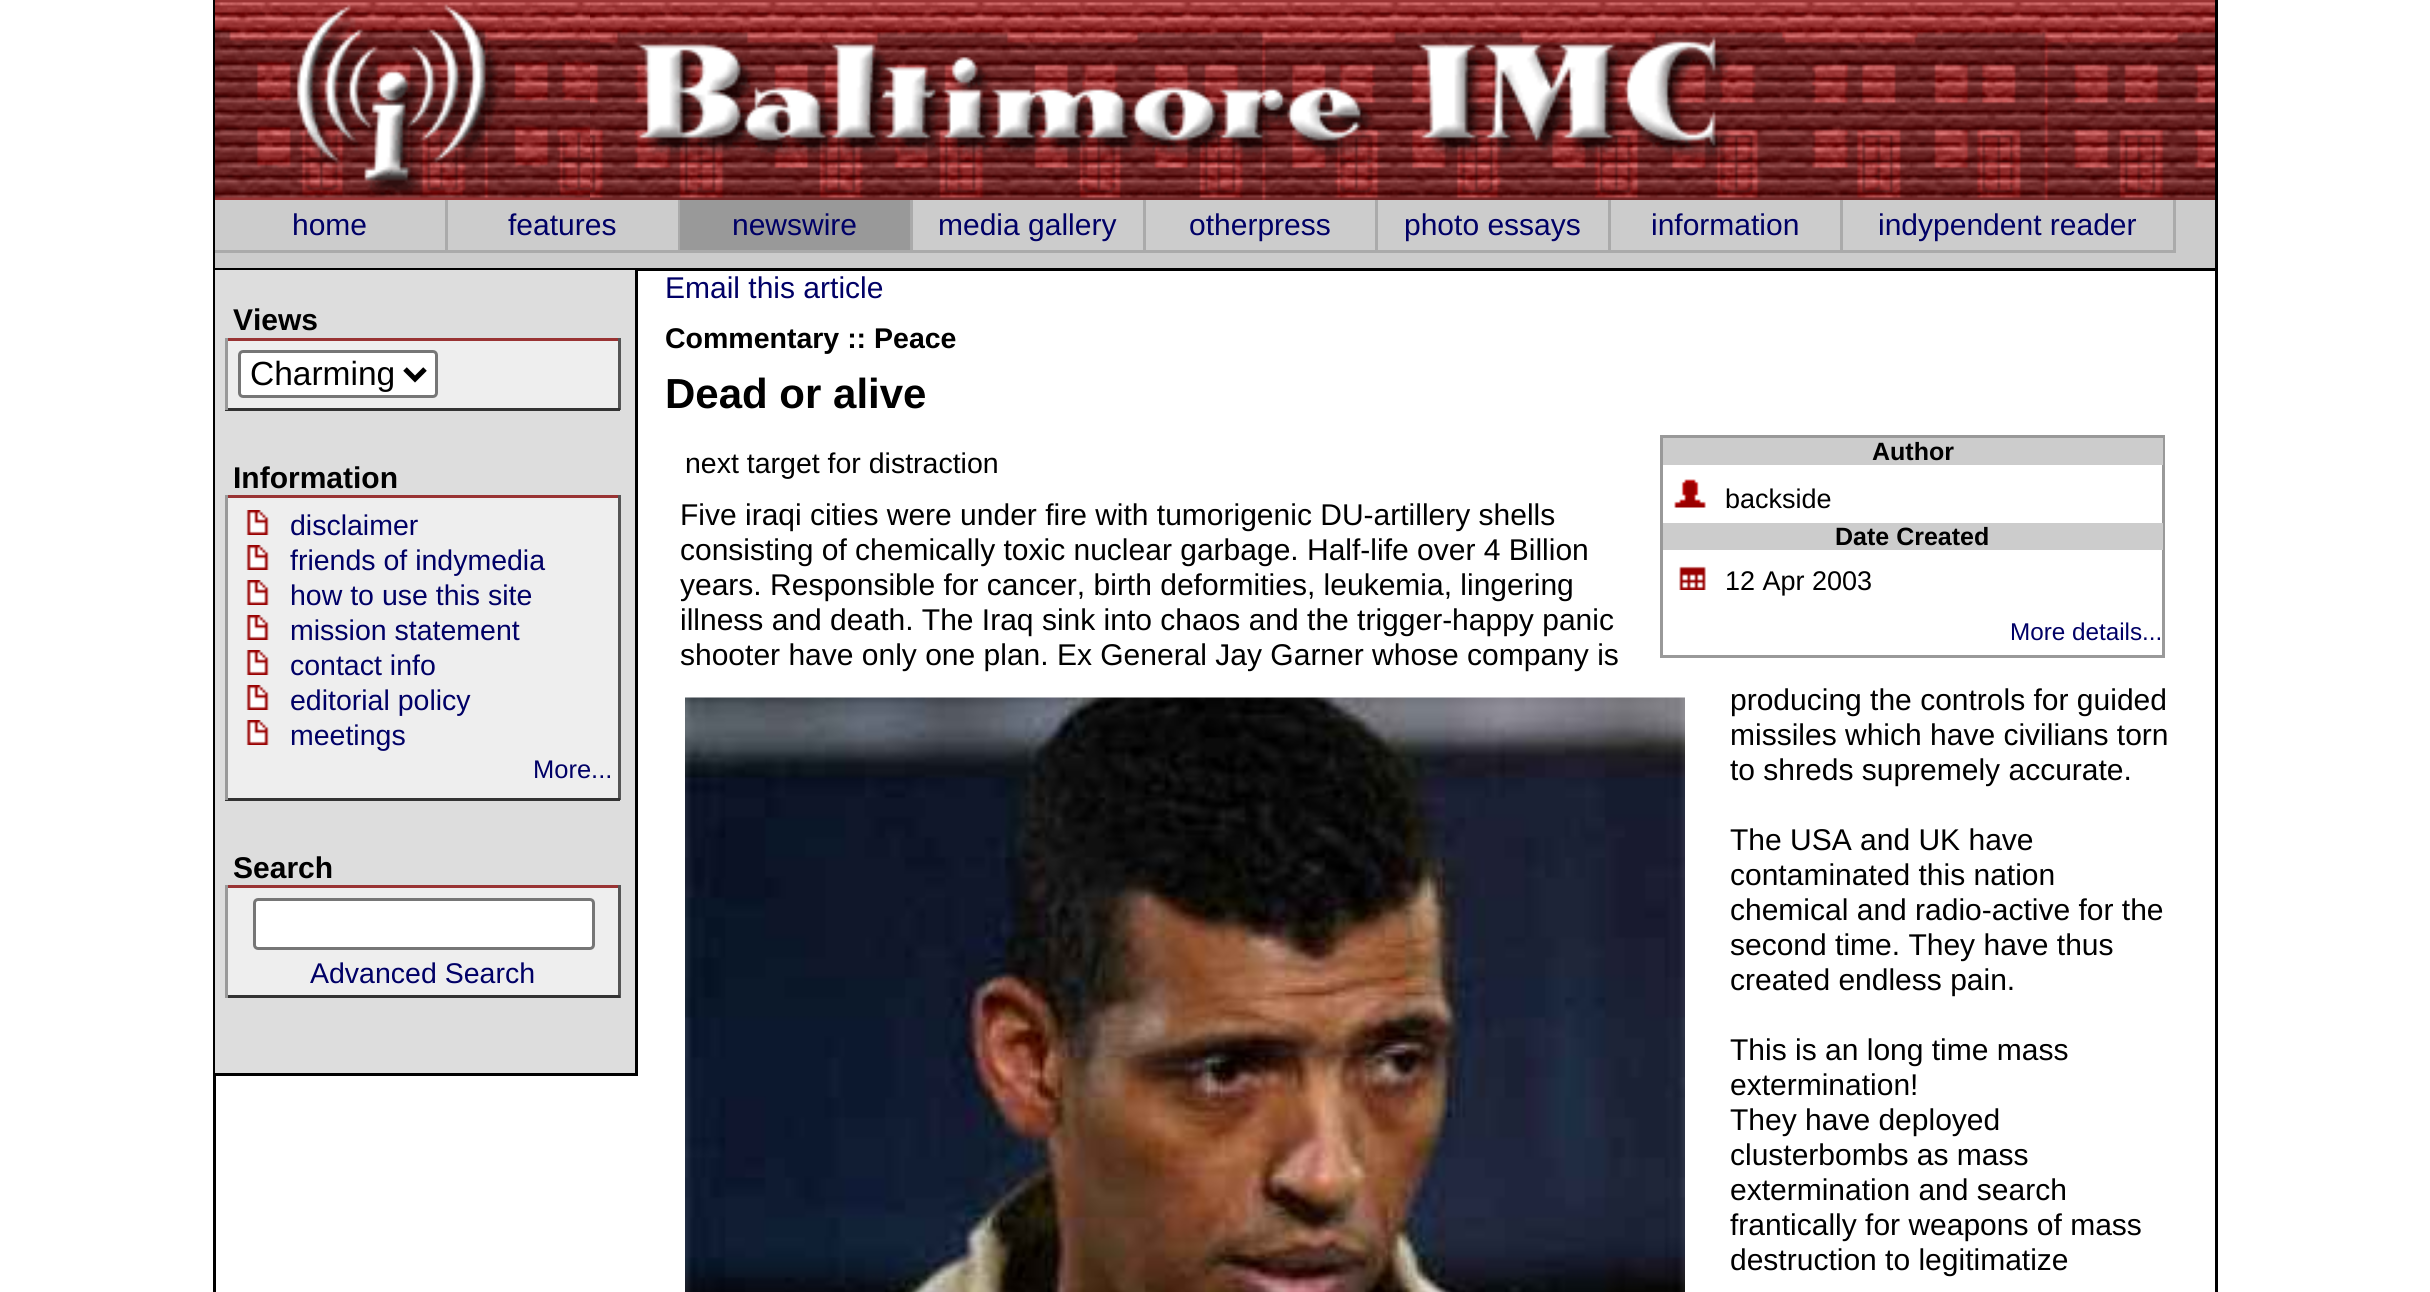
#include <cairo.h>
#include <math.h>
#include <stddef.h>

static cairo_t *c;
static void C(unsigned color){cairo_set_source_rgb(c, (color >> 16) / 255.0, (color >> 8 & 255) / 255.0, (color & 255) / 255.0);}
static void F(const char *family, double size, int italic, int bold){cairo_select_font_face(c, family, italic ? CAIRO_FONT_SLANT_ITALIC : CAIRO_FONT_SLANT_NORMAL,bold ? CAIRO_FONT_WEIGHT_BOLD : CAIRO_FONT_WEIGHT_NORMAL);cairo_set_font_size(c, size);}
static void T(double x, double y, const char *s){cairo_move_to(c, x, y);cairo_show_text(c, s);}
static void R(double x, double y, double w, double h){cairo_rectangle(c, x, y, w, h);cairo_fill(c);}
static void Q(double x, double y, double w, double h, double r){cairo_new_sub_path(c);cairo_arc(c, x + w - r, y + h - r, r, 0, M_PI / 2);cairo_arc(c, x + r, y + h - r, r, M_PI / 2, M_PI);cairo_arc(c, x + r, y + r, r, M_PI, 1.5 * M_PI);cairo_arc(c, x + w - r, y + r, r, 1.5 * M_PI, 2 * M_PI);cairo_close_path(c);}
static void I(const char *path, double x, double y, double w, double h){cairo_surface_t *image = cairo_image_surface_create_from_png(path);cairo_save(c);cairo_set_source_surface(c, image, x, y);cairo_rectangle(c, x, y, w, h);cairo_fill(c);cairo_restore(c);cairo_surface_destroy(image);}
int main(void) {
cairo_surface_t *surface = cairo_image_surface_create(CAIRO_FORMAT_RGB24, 2430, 1292);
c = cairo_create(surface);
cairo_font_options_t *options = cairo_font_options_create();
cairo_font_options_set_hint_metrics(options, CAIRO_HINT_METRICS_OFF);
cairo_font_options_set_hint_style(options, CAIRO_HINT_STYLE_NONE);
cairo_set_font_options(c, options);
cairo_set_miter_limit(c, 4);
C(0xffffff);
cairo_paint(c);
C(0x000000);
R(2215,0,3,1292);
R(213,0,3,1292);
C(0x993333);
R(215,0,2000,200);
I("1.png",215,2,375,197);
I("2.png",590,2,1625,198);
C(0xcccccc);
R(215,200,2000,68);
C(0x000000);
R(215,268,2000,3);
C(0xaaaaaa);
R(445,200,3,53);
R(215,250,233,3);
F("Liberation Sans",30,0,0);
C(0x000066);
T(292,235,"home");
C(0xaaaaaa);
R(678,200,2,53);
R(448,250,232,3);
C(0x000066);
T(508,235,"features");
C(0x999999);
R(680,200,230,50);
C(0xaaaaaa);
R(910,200,3,53);
R(680,250,233,3);
C(0x000066);
T(732,235,"newswire");
C(0xaaaaaa);
R(1143,200,3,53);
R(913,250,232,3);
C(0x000066);
T(938,235,"media gallery");
C(0xaaaaaa);
R(1375,200,3,53);
R(1145,250,233,3);
C(0x000066);
T(1189,235,"otherpress");
C(0xaaaaaa);
R(1608,200,3,53);
R(1378,250,232,3);
C(0x000066);
T(1404,235,"photo essays");
C(0xaaaaaa);
R(1840,200,3,53);
R(1610,250,233,3);
C(0x000066);
T(1651,235,"information");
C(0xaaaaaa);
R(2173,200,3,53);
R(1843,250,332,3);
C(0x000066);
T(1878,235,"indypendent reader");
C(0xdddddd);
R(215,270,420,803);
C(0x000000);
R(635,270,3,805);
R(215,1073,423,3);
F("Liberation Sans",30,0,1);
T(233,330,"Views");
C(0xeeeeee);
R(228,341,390,67);
C(0x993333);
R(225,338,395,3);
C(0x555555);
R(618,338,3,72);
C(0x333333);
R(225,408,395,3);
C(0x999999);
R(225,338,3,72);
C(0xffffff);
Q(239.5,351.5,197,45,3.5);
cairo_fill_preserve(c);
C(0x767676);
cairo_set_line_width(c,3);
cairo_stroke(c);
cairo_new_path(c);
cairo_move_to(c,405,369);
cairo_line_to(c,415,379);
cairo_line_to(c,425,369);
C(0x000000);
cairo_set_line_width(c,5);
cairo_stroke(c);
F("Liberation Sans",33.5,0,0);
T(250,385,"Charming");
F("Liberation Sans",30,0,1);
T(233,488,"Information");
C(0xeeeeee);
R(228,498,390,300);
C(0x993333);
R(225,495,395,3);
C(0x555555);
R(618,495,3,305);
C(0x333333);
R(225,798,395,3);
C(0x999999);
R(225,495,3,305);
I("3.png",246,510,23,25);
F("Liberation Sans",28.5,0,0);
C(0x000066);
T(290,535,"disclaimer");
I("3.png",246,545,23,25);
T(290,570,"friends of indymedia");
I("4.png",246,580,23,25);
T(290,605,"how to use this site");
I("3.png",246,615,23,25);
T(290,640,"mission statement");
I("3.png",246,650,23,25);
T(290,675,"contact info");
I("3.png",246,685,23,25);
T(290,710,"editorial policy");
I("3.png",246,720,23,25);
T(290,745,"meetings");
F("Liberation Sans",25.5,0,0);
T(533,778,"More...");
F("Liberation Sans",30,0,1);
C(0x000000);
T(233,878,"Search");
C(0xeeeeee);
R(228,888,390,107);
C(0x993333);
R(225,885,395,3);
C(0x555555);
R(618,885,3,113);
C(0x333333);
R(225,995,395,3);
C(0x999999);
R(225,885,3,113);
C(0xffffff);
Q(254.5,899.5,339,49,3.5);
cairo_fill_preserve(c);
C(0x767676);
cairo_set_line_width(c,3);
cairo_stroke(c);
F("Liberation Sans",28.5,0,0);
C(0x000066);
T(310,983,"Advanced Search");
F("Liberation Sans",30,0,0);
T(665,298,"Email this article");
F("Liberation Sans",28.5,0,1);
C(0x000000);
T(665,348,"Commentary :: Peace");
F("Liberation Sans",42,0,1);
T(665,408,"Dead or alive");
F("Liberation Sans",28.5,0,0);
T(685,473,"next target for distraction");
cairo_rectangle(c,1661.5,436.5,502,220);
C(0x999999);
cairo_stroke(c);
C(0xcccccc);
R(1663,438,500,27);
F("Liberation Sans",25,0,1);
C(0x000000);
T(1872,460,"Author");
I("5.png",1674,479,32,29);
F("Liberation Sans",27,0,0);
T(1725,508,"backside");
C(0xcccccc);
R(1663,523,500,27);
F("Liberation Sans",25,0,1);
C(0x000000);
T(1835,545,"Date Created");
I("6.png",1679,566,27,24);
F("Liberation Sans",27,0,0);
T(1725,590,"12 Apr 2003");
F("Liberation Sans",24.25,0,0);
C(0x000066);
T(2010,640,"More details...");
F("Liberation Sans",30,0,0);
C(0x000000);
T(680,525,"Five iraqi cities were under fire with tumorigenic DU-artillery shells");
T(680,560,"consisting of chemically toxic nuclear garbage. Half-life over 4 Billion");
T(680,595,"years. Responsible for cancer, birth deformities, leukemia, lingering");
T(680,630,"illness and death. The Iraq sink into chaos and the trigger-happy panic");
T(680,665,"shooter have only one plan. Ex General Jay Garner whose company is");
T(1730,710,"producing the controls for guided");
T(1730,745,"missiles which have civilians torn");
T(1730,780,"to shreds supremely accurate.");
T(1730,850,"The USA and UK have");
T(1730,885,"contaminated this nation");
T(1730,920,"chemical and radio-active for the");
T(1730,955,"second time. They have thus");
T(1730,990,"created endless pain.");
T(1730,1060,"This is an long time mass");
T(1730,1095,"extermination!");
T(1730,1130,"They have deployed");
T(1730,1165,"clusterbombs as mass");
T(1730,1200,"extermination and search");
T(1730,1235,"frantically for weapons of mass");
T(1730,1270,"destruction to legitimatize");
I("7.png",685,697,1000,595);
cairo_surface_write_to_png(surface, "o.png");
cairo_font_options_destroy(options);
cairo_destroy(c);
cairo_surface_destroy(surface);
return 0;
}
